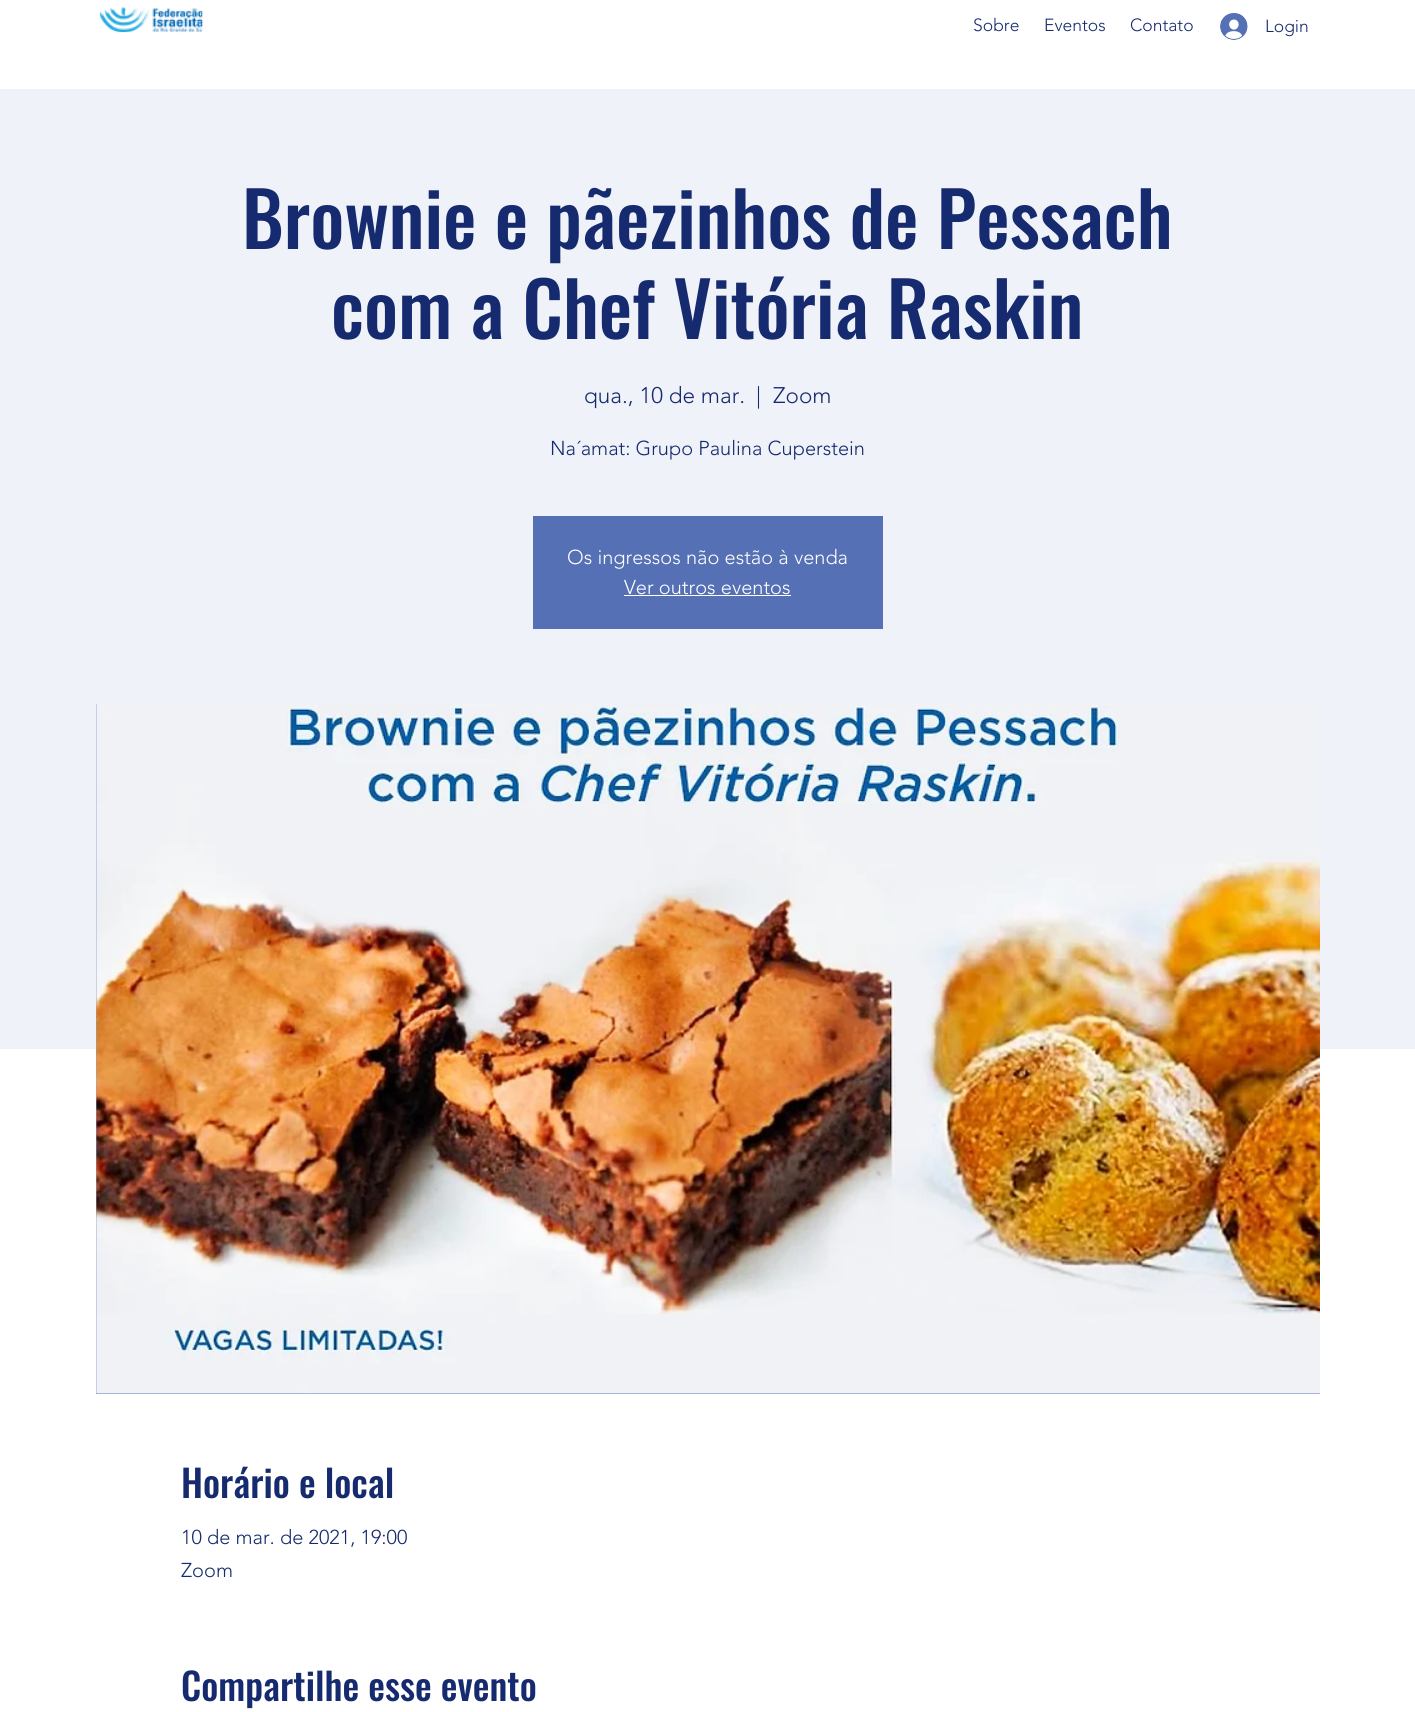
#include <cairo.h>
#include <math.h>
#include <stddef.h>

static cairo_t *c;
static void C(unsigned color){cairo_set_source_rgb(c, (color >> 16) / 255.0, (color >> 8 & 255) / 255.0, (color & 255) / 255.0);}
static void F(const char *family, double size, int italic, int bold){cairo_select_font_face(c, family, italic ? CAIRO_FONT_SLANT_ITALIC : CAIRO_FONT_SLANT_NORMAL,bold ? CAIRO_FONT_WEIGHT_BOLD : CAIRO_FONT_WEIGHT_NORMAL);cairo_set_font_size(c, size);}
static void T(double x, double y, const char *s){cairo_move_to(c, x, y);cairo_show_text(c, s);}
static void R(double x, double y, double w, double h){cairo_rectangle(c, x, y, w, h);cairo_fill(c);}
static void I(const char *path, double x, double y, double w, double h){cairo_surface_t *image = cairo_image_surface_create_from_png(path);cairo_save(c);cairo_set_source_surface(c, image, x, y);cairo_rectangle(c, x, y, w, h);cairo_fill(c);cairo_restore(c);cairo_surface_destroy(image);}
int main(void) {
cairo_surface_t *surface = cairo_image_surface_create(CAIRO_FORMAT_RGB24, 1415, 1712);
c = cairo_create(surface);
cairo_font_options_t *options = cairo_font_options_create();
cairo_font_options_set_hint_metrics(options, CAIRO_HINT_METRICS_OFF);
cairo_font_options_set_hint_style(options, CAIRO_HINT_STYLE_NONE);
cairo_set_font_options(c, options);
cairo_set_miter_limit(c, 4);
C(0xffffff);
cairo_paint(c);
I("1.png",100,7,103,26);
F("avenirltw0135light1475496 Light",17.5,0,0);
C(0x162b6f);
T(973,31,"Sobre");
T(1044,31,"Eventos");
T(1130,31,"Contato");
I("2.png",1220,13,28,27);
T(1265,32,"Login");
C(0xeff2f8);
R(0,89,1415,960);
F("Oswald Medium",75,0,0);
C(0x162b6f);
T(242,249,"Brownie e pãezinhos de Pessach");
T(331,339,"com a Chef Vitória Raskin");
F("avenirltw0135light1475496 Light",22.5,0,0);
T(584,403,"qua., 10 de mar.");
T(756,403,"|");
T(773,403,"Zoom");
F("avenirltw0135light1475496 Light",20,0,0);
T(550,455,"Na´amat: Grupo Paulina Cuperstein");
C(0x5570b4);
R(533,516,350,113);
C(0xffffff);
T(567,564,"Os ingressos não estão à venda");
T(624,594,"Ver outros eventos");
R(624,595,167,1);
C(0x8ea0cd);
R(96,704,1224,690);
I("3.png",96,703,1224,691);
F("Oswald Medium",37.5,0,0);
C(0x162b6f);
T(181,1498,"Horário e local");
F("avenirltw0135light1475496 Light",20,0,0);
T(181,1544,"10 de mar. de 2021, 19:00");
T(181,1577,"Zoom");
F("Oswald Medium",37.5,0,0);
T(181,1701,"Compartilhe esse evento");
cairo_surface_write_to_png(surface, "o.png");
cairo_font_options_destroy(options);
cairo_destroy(c);
cairo_surface_destroy(surface);
return 0;
}
